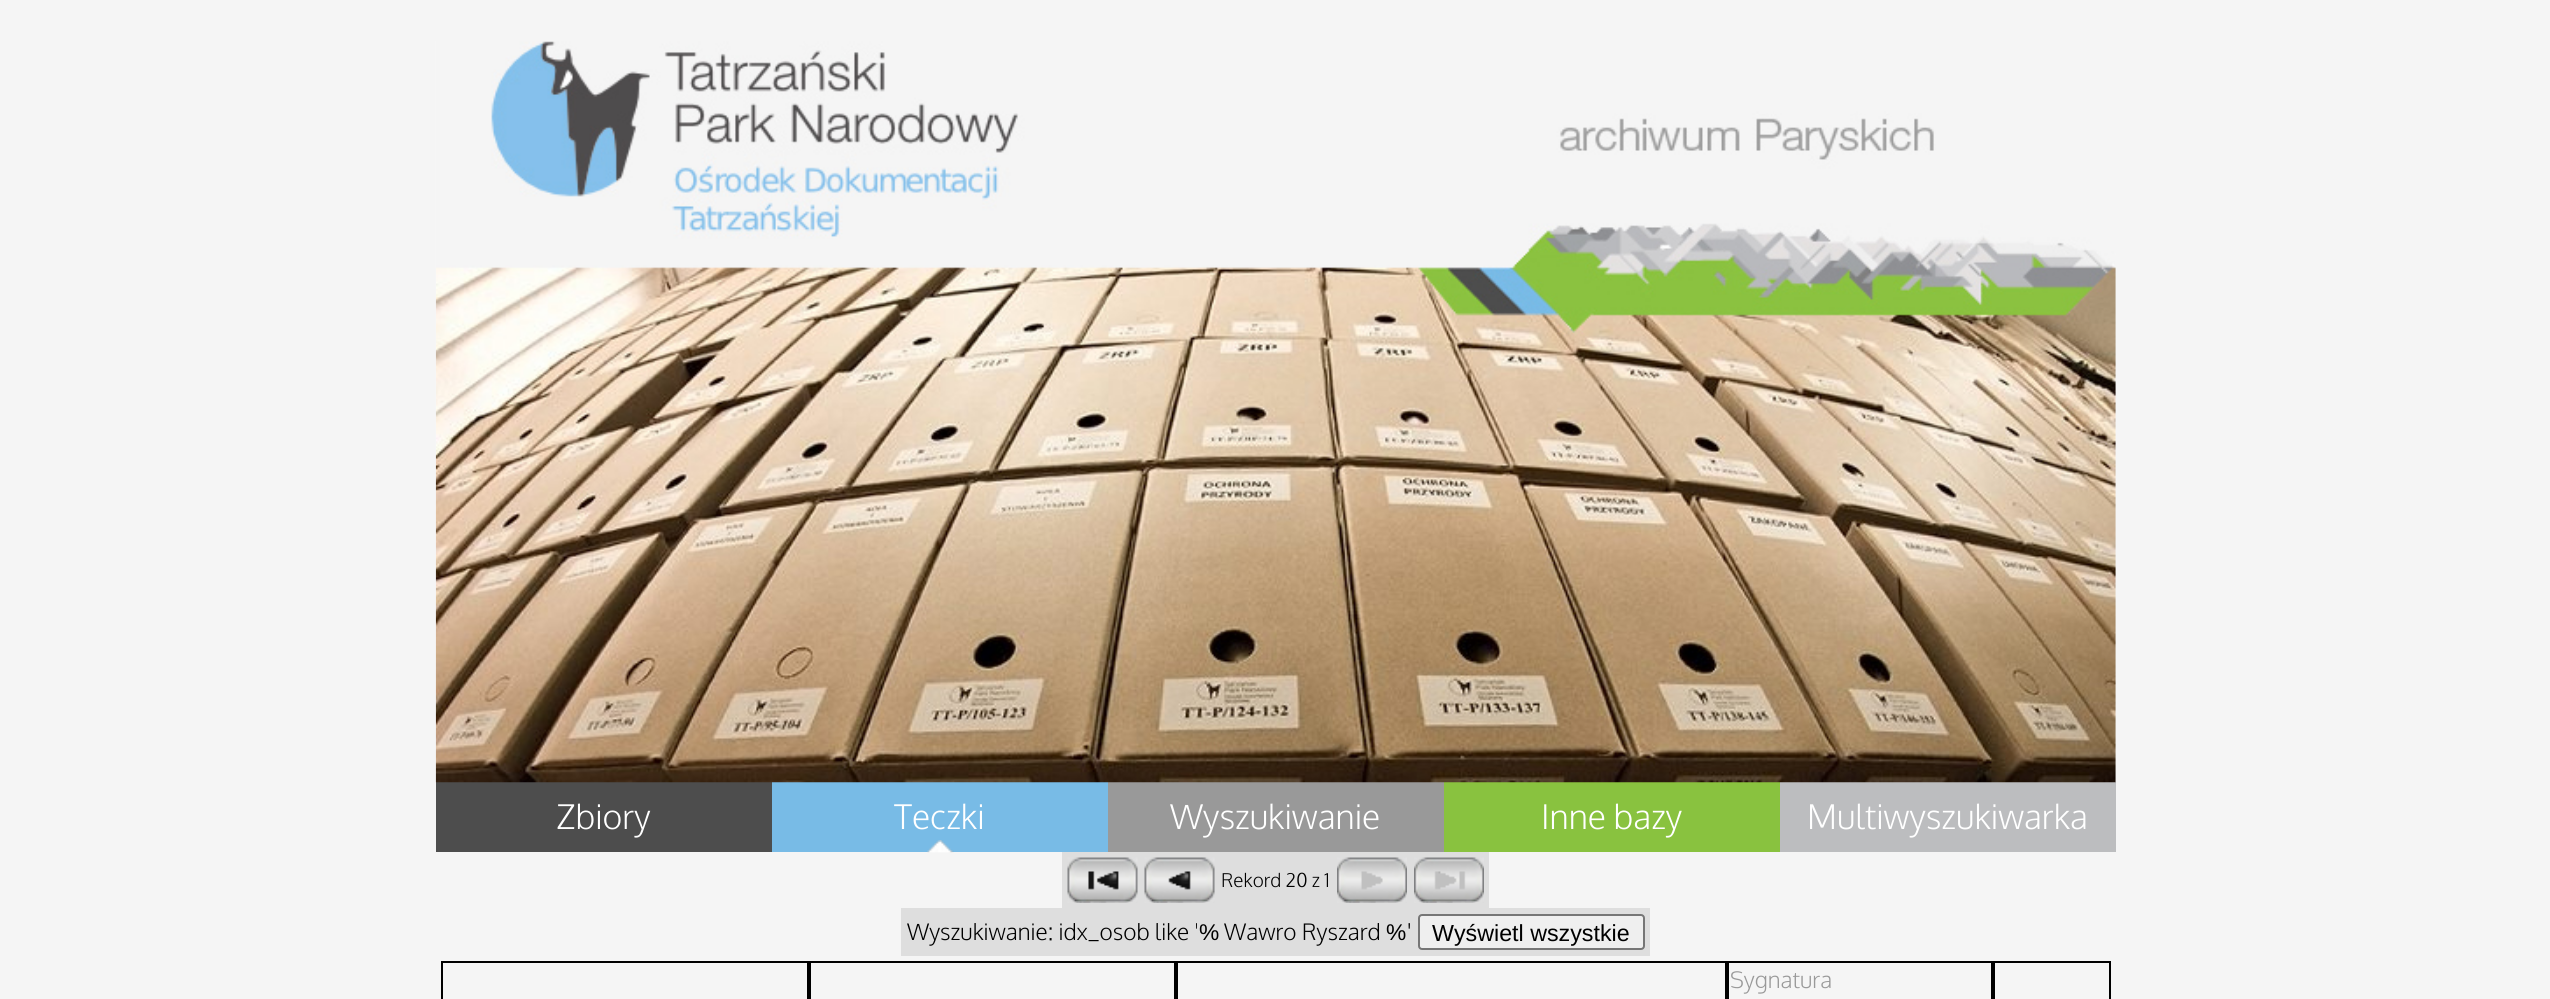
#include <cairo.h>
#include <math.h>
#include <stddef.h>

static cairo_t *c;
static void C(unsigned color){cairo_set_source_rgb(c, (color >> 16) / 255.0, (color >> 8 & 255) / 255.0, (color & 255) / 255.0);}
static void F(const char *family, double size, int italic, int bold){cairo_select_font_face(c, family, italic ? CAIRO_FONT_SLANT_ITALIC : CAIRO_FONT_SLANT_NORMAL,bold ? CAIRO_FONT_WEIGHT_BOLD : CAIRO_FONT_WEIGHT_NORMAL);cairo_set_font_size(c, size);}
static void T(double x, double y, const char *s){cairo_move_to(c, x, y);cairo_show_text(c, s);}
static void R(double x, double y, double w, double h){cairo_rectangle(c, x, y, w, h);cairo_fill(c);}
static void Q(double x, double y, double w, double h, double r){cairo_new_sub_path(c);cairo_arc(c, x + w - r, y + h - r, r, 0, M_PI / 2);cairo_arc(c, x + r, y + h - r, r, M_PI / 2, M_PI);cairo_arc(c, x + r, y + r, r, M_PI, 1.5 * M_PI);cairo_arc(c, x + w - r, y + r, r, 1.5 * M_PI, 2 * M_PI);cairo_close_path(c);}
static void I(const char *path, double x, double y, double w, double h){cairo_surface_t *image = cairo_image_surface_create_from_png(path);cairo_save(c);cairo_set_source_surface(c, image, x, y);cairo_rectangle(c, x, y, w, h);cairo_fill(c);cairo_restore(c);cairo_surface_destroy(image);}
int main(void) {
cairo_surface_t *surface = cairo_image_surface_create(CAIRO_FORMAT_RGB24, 2550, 999);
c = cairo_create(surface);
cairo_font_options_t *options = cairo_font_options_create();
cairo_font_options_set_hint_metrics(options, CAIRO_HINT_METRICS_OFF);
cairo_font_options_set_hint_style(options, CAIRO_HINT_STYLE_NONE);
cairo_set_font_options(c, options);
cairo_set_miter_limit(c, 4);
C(0xf5f5f5);
cairo_paint(c);
C(0x4d4d4d);
R(436,782,336,70);
C(0x78bbe6);
R(772,782,336,70);
C(0x999999);
R(1108,782,336,70);
C(0x89c23f);
R(1444,782,336,70);
C(0xbcbdbf);
R(1780,782,336,70);
I("1.png",435,41,1681,742);
F("Oxygen Light",34,0,0);
C(0xffffff);
T(556,829,"Zbiory");
T(894,829,"Teczki");
T(1170,829,"Wyszukiwanie");
T(1541,829,"Inne bazy");
T(1807,829,"Multiwyszukiwarka");
I("2.png",927,840,27,13);
C(0xdedede);
R(1062,852,427,56);
I("3.png",1067,857,71,46);
I("4.png",1144,857,71,46);
F("Oxygen Light",19,0,0);
C(0x000000);
T(1221,887,"Rekord 20 z 1");
I("5.png",1337,857,70,46);
I("6.png",1414,857,70,46);
C(0xdedede);
R(901,908,749,48);
F("Oxygen Light",22.75,0,0);
C(0x000000);
T(907,940,"Wyszukiwanie: idx_osob like '");
F("Liberation Sans",22.75,0,0);
T(1199,940,"%");
F("Oxygen Light",22.75,0,0);
T(1224,940,"Wawro Ryszard");
F("Liberation Sans",22.75,0,0);
T(1386,940,"%");
F("Oxygen Light",22.75,0,0);
T(1407,940,"'");
C(0xefefef);
Q(1419,915,225,34,3);
cairo_fill_preserve(c);
C(0x767676);
cairo_stroke(c);
F("Liberation Sans",23.25,0,0);
C(0x000000);
T(1432,941,"Wyświetl wszystkie");
cairo_rectangle(c,442,962,366,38);
cairo_stroke(c);
cairo_rectangle(c,810,962,365,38);
cairo_stroke(c);
cairo_rectangle(c,1177,962,549,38);
cairo_stroke(c);
cairo_rectangle(c,1728,962,264,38);
cairo_stroke(c);
F("Oxygen Light",22.75,0,0);
C(0x999999);
T(1730,988,"Sygnatura");
cairo_rectangle(c,1994,962,116,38);
C(0x000000);
cairo_stroke(c);
cairo_surface_write_to_png(surface, "o.png");
cairo_font_options_destroy(options);
cairo_destroy(c);
cairo_surface_destroy(surface);
return 0;
}
